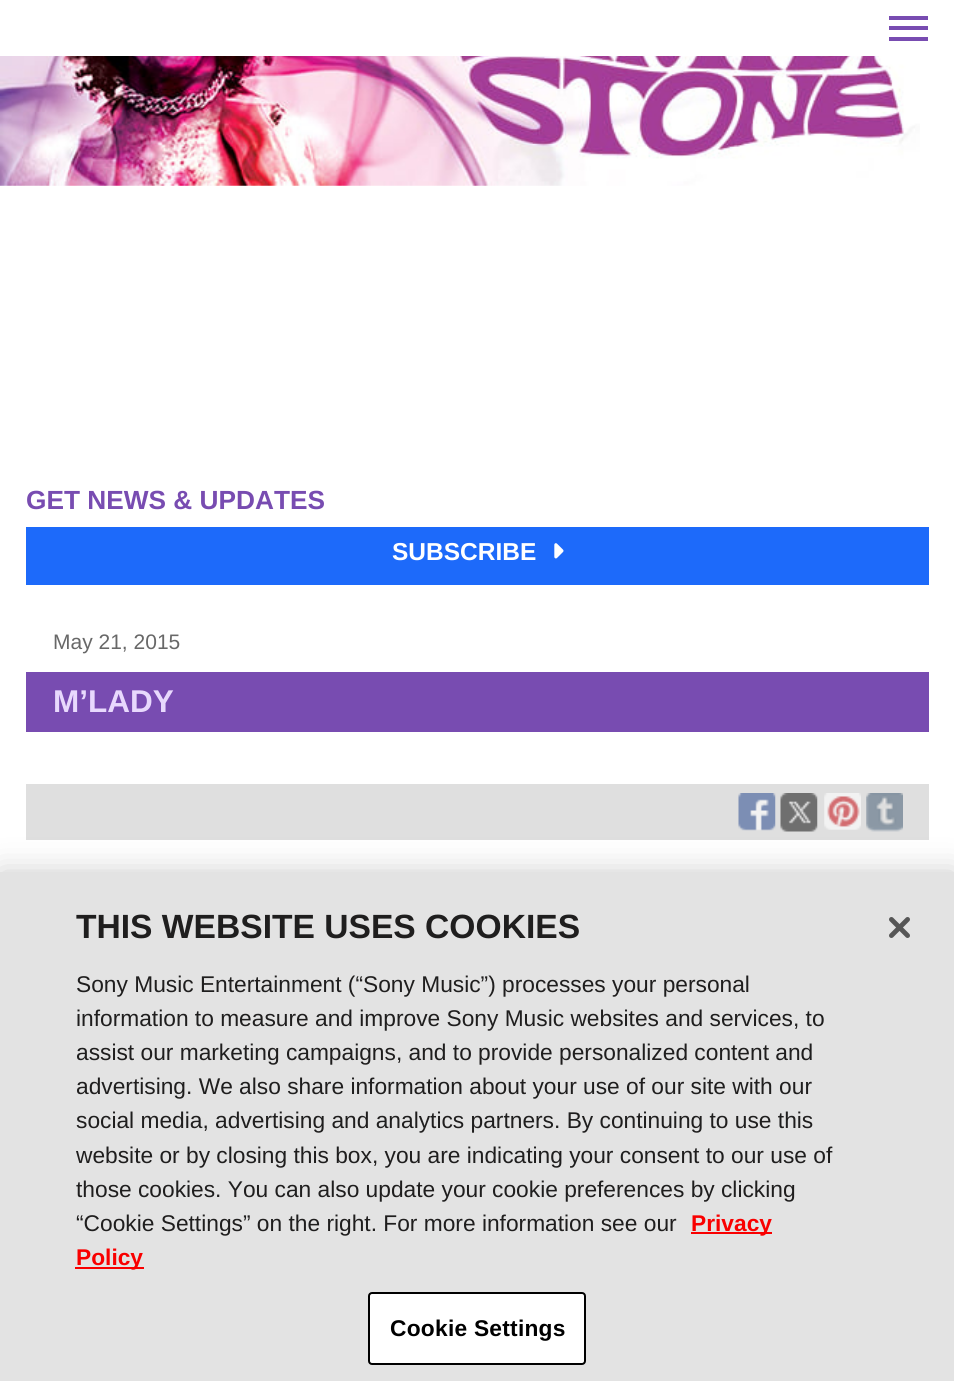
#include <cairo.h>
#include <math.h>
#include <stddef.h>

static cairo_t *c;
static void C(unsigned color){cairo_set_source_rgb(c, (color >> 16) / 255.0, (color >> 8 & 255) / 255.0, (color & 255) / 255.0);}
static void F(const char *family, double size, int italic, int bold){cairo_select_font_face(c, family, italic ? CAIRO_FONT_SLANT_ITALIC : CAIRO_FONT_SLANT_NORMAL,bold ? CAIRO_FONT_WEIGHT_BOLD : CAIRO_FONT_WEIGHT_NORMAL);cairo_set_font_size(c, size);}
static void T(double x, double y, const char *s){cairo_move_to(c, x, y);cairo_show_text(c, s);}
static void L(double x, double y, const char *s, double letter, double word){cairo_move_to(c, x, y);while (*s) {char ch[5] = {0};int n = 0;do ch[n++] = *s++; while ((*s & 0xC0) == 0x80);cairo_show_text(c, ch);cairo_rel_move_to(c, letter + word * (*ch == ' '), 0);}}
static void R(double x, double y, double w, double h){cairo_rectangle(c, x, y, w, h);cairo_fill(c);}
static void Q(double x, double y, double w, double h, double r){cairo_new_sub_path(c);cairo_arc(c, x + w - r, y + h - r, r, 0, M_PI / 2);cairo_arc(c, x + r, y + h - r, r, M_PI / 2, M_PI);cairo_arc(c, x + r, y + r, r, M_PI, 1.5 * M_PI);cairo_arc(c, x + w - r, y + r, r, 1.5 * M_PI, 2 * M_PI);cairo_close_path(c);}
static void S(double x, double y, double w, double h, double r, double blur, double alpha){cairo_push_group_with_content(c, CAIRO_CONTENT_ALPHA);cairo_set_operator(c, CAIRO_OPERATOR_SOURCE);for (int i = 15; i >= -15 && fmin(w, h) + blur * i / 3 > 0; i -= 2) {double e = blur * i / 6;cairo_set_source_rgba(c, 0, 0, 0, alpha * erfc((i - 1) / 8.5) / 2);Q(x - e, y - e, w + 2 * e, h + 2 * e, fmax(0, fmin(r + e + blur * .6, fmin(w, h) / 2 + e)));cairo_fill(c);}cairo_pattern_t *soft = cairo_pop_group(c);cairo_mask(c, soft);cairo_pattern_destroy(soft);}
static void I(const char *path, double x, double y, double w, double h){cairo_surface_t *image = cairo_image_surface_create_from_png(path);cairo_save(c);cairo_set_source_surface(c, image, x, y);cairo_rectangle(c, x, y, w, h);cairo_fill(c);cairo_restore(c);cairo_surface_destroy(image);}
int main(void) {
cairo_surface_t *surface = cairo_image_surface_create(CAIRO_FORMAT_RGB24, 954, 1381);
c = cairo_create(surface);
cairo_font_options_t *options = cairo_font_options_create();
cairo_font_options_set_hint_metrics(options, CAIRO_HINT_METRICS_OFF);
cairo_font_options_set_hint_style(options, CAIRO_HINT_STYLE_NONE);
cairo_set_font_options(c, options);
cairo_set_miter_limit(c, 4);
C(0xffffff);
cairo_paint(c);
C(0x784cb1);
R(889,16,39,4);
R(889,26,39,4);
R(889,37,39,4);
I("1.png",0,56,920,130);
F("Liberation Sans",26.25,0,1);
T(26,509,"GET NEWS & UPDATES");
C(0x1d6afa);
R(26,527,903,58);
F("Liberation Sans",24.5,0,1);
C(0xffffff);
T(392,560,"SUBSCRIBE");
I("2.png",554,543,10,16);
F("Liberation Sans",21,0,0);
C(0x686868);
T(53,649,"May 21, 2015");
C(0x784cb1);
R(26,672,903,60);
F("Liberation Sans",31.5,0,1);
C(0xe8d9fd);
T(53,712,"M’LADY");
C(0xdfdfdf);
R(26,784,903,56);
I("3.png",738,793,38,38);
I("4.png",780,793,38,39);
I("5.png",824,793,37,37);
I("6.png",866,793,37,39);
C(0x000000);
S(0,872,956,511,0,16,.2);
C(0xe3e3e3);
R(0,872,954,509);
F("Liberation Sans",33.6,0,1);
C(0x1f1e1e);
T(76,938,"THIS WEBSITE USES COOKIES");
F("Liberation Sans",22.75,0,0);
T(76,992,"Sony Music Entertainment (“Sony Music”) processes your personal");
T(76,1026,"information to measure and improve Sony Music websites and services, to");
T(76,1060,"assist our marketing campaigns, and to provide personalized content and");
T(76,1094,"advertising. We also share information about your use of our site with our");
T(76,1128,"social media, advertising and analytics partners. By continuing to use this");
T(76,1163,"website or by closing this box, you are indicating your consent to our use of");
T(76,1197,"those cookies. You can also update your cookie preferences by clicking");
T(76,1231,"“Cookie Settings” on the right. For more information see our");
C(0xf90000);
R(691,1232,81,2);
F("Liberation Sans",22.75,0,1);
T(691,1231,"Privacy");
R(75,1267,69,2);
T(76,1265,"Policy");
C(0xffffff);
Q(369,1293,216,71,3);
cairo_fill_preserve(c);
C(0x000000);
cairo_stroke(c);
L(390,1336,"Cookie Settings",.25,0);
I("7.png",889,917,21,21);
cairo_surface_write_to_png(surface, "o.png");
cairo_font_options_destroy(options);
cairo_destroy(c);
cairo_surface_destroy(surface);
return 0;
}
